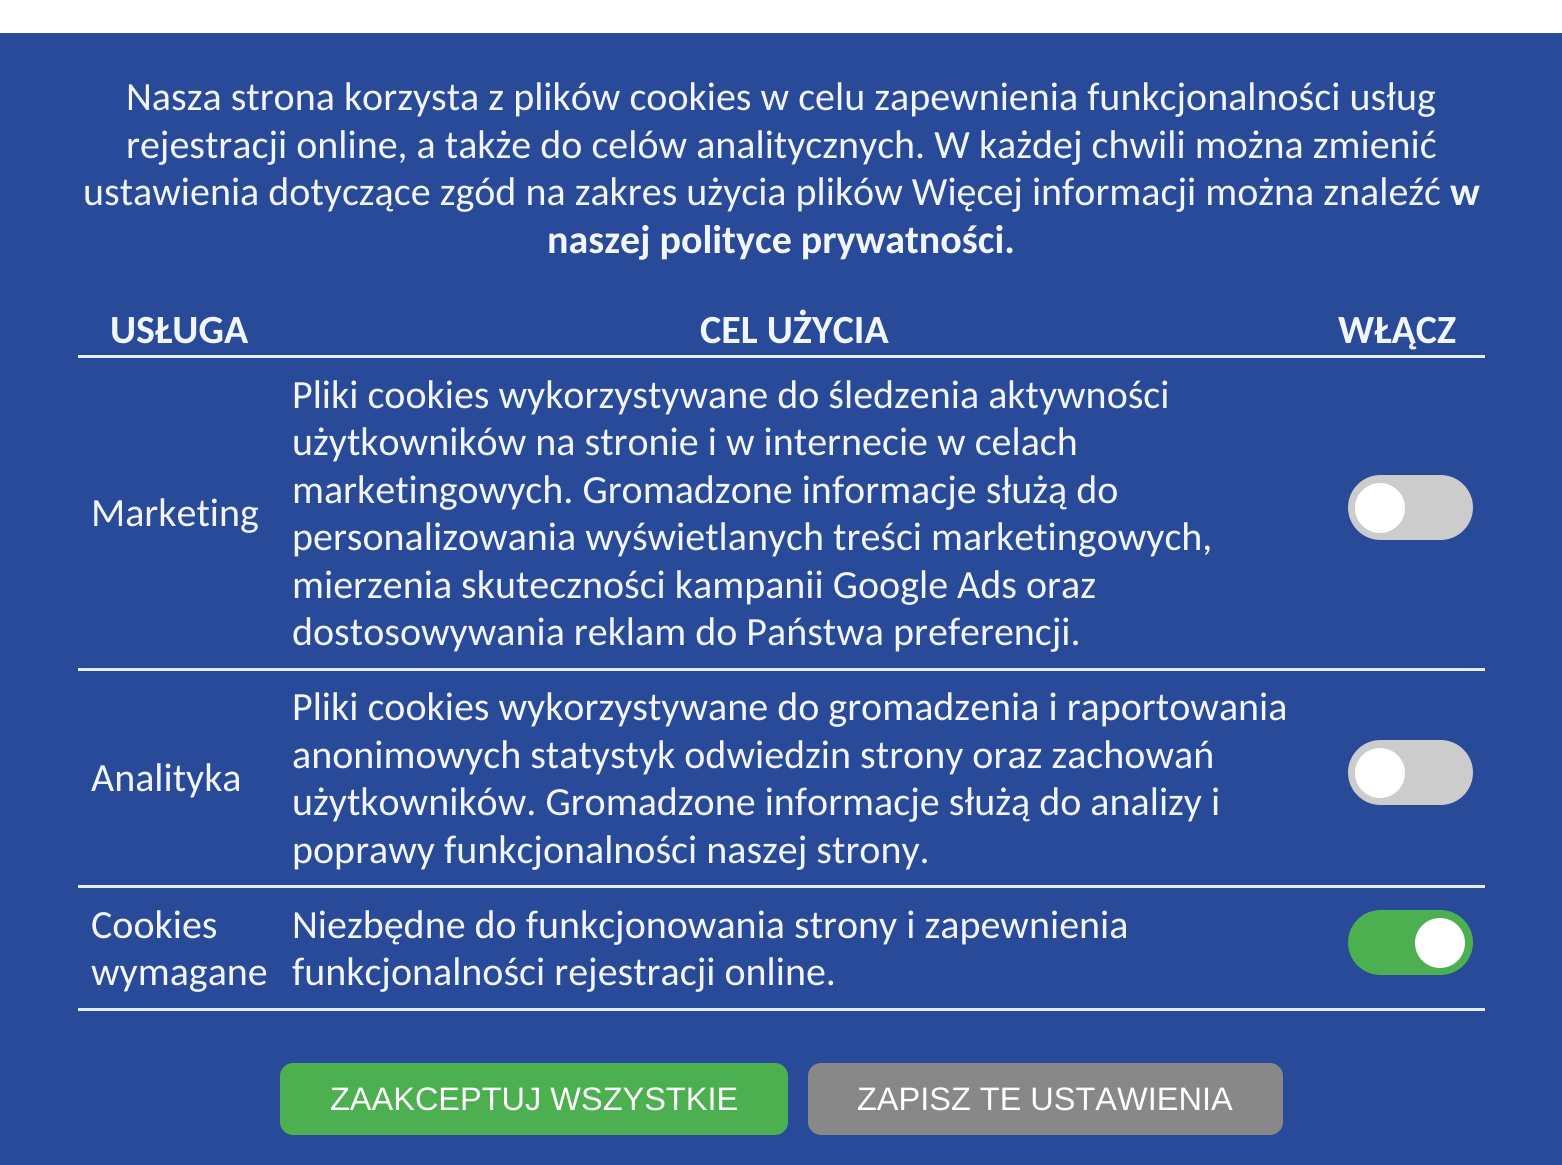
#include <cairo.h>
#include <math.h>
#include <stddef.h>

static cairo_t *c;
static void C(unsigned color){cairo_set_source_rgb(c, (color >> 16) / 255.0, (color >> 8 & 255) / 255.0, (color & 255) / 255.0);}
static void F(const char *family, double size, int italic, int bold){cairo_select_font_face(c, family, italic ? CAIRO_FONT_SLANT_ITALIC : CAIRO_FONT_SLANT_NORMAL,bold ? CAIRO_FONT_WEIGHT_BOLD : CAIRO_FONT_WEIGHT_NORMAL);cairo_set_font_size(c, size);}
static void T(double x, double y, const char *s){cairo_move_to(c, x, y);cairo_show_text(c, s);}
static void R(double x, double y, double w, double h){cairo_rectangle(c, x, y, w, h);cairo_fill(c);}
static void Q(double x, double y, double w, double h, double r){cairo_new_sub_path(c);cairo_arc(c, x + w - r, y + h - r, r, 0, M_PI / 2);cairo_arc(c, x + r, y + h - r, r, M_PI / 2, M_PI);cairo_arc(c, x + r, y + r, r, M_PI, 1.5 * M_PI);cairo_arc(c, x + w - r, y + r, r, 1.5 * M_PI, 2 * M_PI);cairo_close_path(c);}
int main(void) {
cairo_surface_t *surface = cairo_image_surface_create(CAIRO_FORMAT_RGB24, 1562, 1165);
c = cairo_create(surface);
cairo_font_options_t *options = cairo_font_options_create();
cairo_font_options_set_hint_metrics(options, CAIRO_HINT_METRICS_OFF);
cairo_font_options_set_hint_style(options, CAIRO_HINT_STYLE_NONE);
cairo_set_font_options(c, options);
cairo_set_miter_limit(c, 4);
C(0xffffff);
cairo_paint(c);
C(0x294a99);
R(0,33,1562,1132);
F("Carlito",40,0,0);
C(0xf2f6ff);
T(126,110,"Nasza strona korzysta z plików cookies w celu zapewnienia funkcjonalności usług");
T(126,158,"rejestracji online, a także do celów analitycznych. W każdej chwili można zmienić");
T(83,205,"ustawienia dotyczące zgód na zakres użycia plików Więcej informacji można znaleźć");
F("Carlito",40,0,1);
T(1450,205,"w");
T(547,253,"naszej polityce prywatności.");
C(0xe5eeff);
R(78,355,1407,3);
C(0xf2f6ff);
T(110,343,"USŁUGA");
T(700,343,"CEL UŻYCIA");
T(1338,343,"WŁĄCZ");
C(0xe5eeff);
R(78,668,1407,3);
F("Carlito",40,0,0);
C(0xf2f6ff);
T(91,526,"Marketing");
T(292,408,"Pliki cookies wykorzystywane do śledzenia aktywności");
T(292,455,"użytkowników na stronie i w internecie w celach");
T(292,503,"marketingowych. Gromadzone informacje służą do");
T(292,550,"personalizowania wyświetlanych treści marketingowych,");
T(292,598,"mierzenia skuteczności kampanii Google Ads oraz");
T(292,645,"dostosowywania reklam do Państwa preferencji.");
C(0xcccccc);
Q(1348,475,125,65,32.5);
cairo_fill(c);
C(0xffffff);
cairo_arc(c,1380,508,25,0,2 * M_PI);
cairo_fill(c);
C(0xe5eeff);
R(78,885,1407,3);
C(0xf2f6ff);
T(91,791,"Analityka");
T(292,720,"Pliki cookies wykorzystywane do gromadzenia i raportowania");
T(292,768,"anonimowych statystyk odwiedzin strony oraz zachowań");
T(292,815,"użytkowników. Gromadzone informacje służą do analizy i");
T(292,863,"poprawy funkcjonalności naszej strony.");
C(0xcccccc);
Q(1348,740,125,65,32.5);
cairo_fill(c);
C(0xffffff);
cairo_arc(c,1380,773,25,0,2 * M_PI);
cairo_fill(c);
C(0xe5eeff);
R(78,1008,1407,3);
C(0xf2f6ff);
T(91,938,"Cookies");
T(91,985,"wymagane");
T(292,938,"Niezbędne do funkcjonowania strony i zapewnienia");
T(292,985,"funkcjonalności rejestracji online.");
C(0x4caf50);
Q(1348,910,125,65,32.5);
cairo_fill(c);
C(0xffffff);
cairo_arc(c,1440,943,25,0,2 * M_PI);
cairo_fill(c);
C(0x4caf50);
Q(280,1063,508,72,13);
cairo_fill(c);
F("Liberation Sans",32.5,0,0);
C(0xffffff);
T(330,1110,"ZAAKCEPTUJ WSZYSTKIE");
C(0x888888);
Q(808,1063,475,72,13);
cairo_fill(c);
C(0xffffff);
T(857,1110,"ZAPISZ TE USTAWIENIA");
cairo_surface_write_to_png(surface, "o.png");
cairo_font_options_destroy(options);
cairo_destroy(c);
cairo_surface_destroy(surface);
return 0;
}
